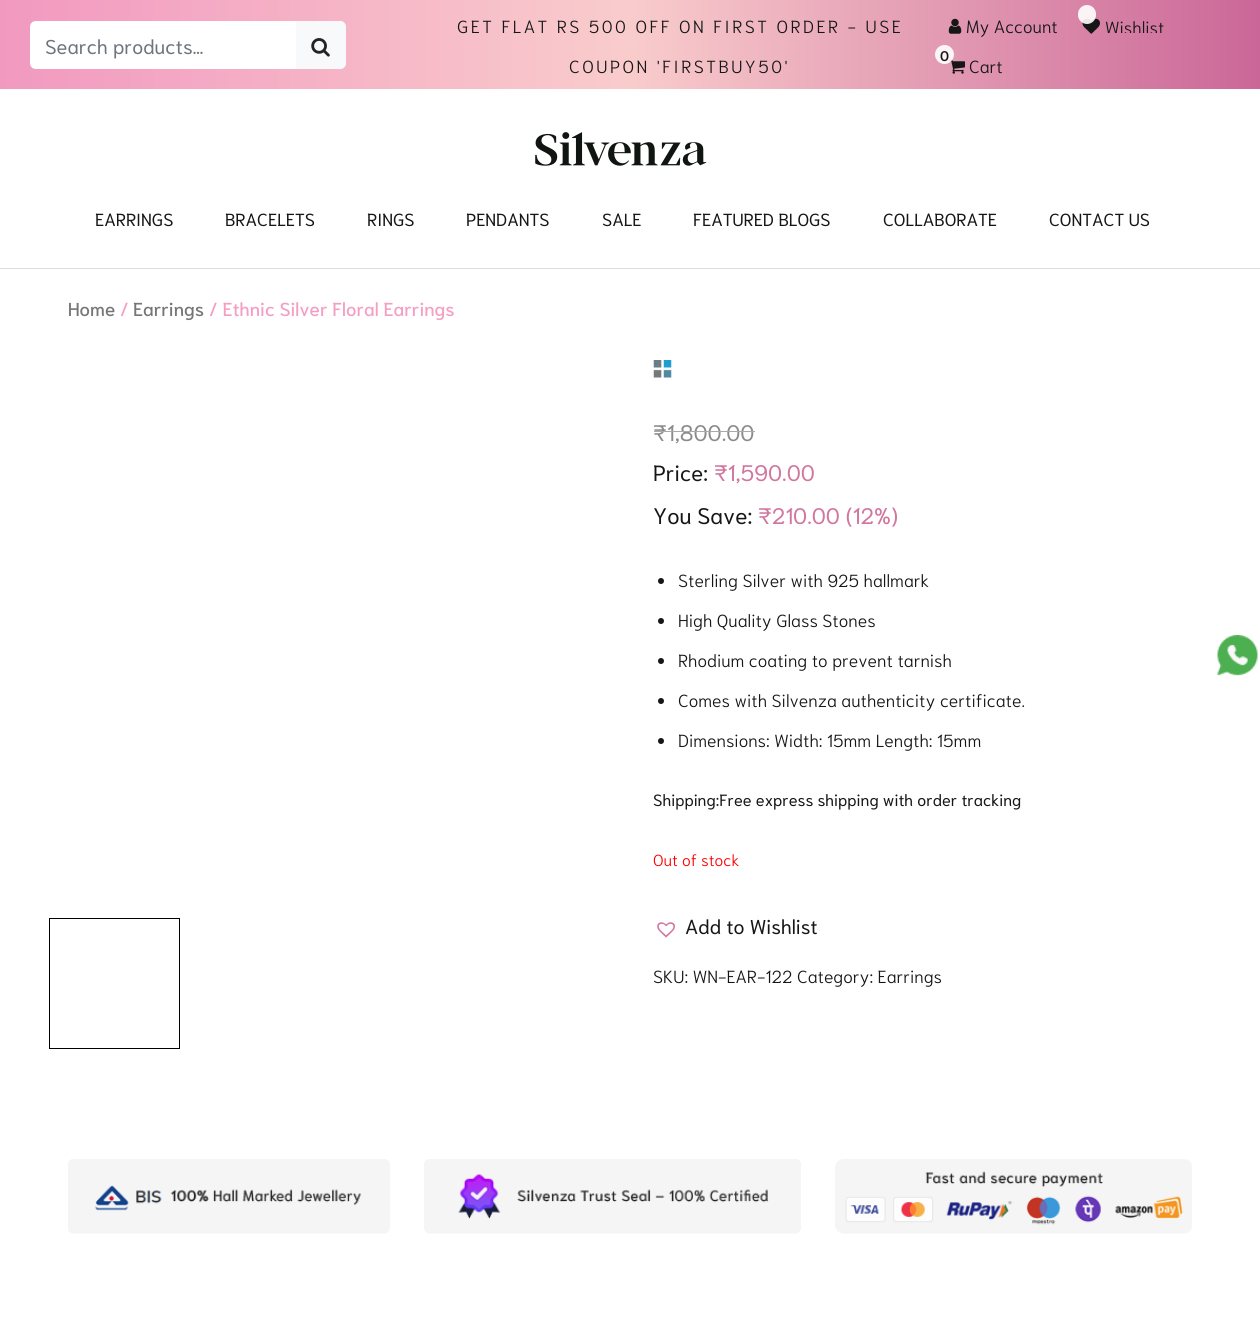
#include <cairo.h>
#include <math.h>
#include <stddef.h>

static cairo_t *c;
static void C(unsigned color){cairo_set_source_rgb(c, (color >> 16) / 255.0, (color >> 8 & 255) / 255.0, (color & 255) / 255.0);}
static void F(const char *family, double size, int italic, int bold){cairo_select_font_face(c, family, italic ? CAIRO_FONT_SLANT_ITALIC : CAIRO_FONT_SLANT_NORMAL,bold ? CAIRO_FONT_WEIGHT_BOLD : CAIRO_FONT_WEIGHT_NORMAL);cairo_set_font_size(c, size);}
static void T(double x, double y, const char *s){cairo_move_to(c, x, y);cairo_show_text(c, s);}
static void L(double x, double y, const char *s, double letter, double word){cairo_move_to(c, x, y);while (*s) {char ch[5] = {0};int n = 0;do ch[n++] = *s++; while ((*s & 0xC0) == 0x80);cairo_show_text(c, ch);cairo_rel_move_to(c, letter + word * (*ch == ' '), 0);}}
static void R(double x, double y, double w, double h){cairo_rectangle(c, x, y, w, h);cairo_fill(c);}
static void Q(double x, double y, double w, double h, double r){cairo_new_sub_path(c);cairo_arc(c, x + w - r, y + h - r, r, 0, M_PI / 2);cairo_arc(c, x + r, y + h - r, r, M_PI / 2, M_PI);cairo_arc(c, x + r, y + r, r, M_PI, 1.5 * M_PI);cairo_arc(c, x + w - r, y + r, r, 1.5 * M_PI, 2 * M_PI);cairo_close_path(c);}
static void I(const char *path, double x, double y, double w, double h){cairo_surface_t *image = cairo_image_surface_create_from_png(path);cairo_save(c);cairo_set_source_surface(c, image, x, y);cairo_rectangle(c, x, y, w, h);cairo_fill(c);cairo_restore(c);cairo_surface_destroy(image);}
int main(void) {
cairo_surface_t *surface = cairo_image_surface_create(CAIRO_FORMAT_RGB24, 1260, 1342);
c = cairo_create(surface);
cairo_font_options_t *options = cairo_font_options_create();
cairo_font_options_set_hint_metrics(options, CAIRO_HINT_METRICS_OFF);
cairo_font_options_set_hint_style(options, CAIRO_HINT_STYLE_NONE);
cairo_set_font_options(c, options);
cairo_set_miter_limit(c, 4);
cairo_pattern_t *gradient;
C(0xffffff);
cairo_paint(c);
gradient = cairo_pattern_create_linear(0,44,1260,44);
cairo_pattern_add_color_stop_rgba(gradient,0,0.949,0.6,0.753,1);
cairo_pattern_add_color_stop_rgba(gradient,.5,0.976,0.8,0.8,1);
cairo_pattern_add_color_stop_rgba(gradient,1,0.796,0.404,0.596,1);
cairo_set_source(c,gradient);
cairo_pattern_destroy(gradient);
R(0,0,1260,89);
C(0xffffff);
cairo_new_path(c);
cairo_move_to(c,36,21);
cairo_line_to(c,296,21);
cairo_line_to(c,296,69);
cairo_line_to(c,36,69);
cairo_curve_to(c,32.5,69,30,66.5,30,63);
cairo_line_to(c,30,27);
cairo_curve_to(c,30,23.5,32.5,21,36,21);
cairo_close_path(c);
cairo_fill(c);
F("Niramit",20,0,0);
C(0x6c757d);
T(45,54,"Search products…");
C(0xf8f9fa);
cairo_new_path(c);
cairo_move_to(c,296,21);
cairo_line_to(c,340,21);
cairo_curve_to(c,343.5,21,346,23.5,346,27);
cairo_line_to(c,346,63);
cairo_curve_to(c,346,66.5,343.5,69,340,69);
cairo_line_to(c,296,69);
cairo_close_path(c);
cairo_fill(c);
cairo_set_fill_rule(c,CAIRO_FILL_RULE_EVEN_ODD);
cairo_new_path(c);
cairo_move_to(c,296,21);
cairo_line_to(c,340,21);
cairo_curve_to(c,343,21,346,24,346,28);
cairo_line_to(c,346,62);
cairo_curve_to(c,346,66,343,69,340,69);
cairo_line_to(c,296,69);
cairo_close_path(c);
cairo_move_to(c,296,22);
cairo_line_to(c,340,22);
cairo_curve_to(c,343,22,345,25,345,28);
cairo_line_to(c,345,62);
cairo_curve_to(c,345,65,343,68,340,68);
cairo_line_to(c,296,68);
cairo_close_path(c);
cairo_fill(c);
I("1.png",311,38,19,19);
F("Niramit Light",17.5,0,0);
C(0x161616);
L(457,33,"GET FLAT RS 500 OFF ON FIRST ORDER - USE",2.5,0);
L(569,73,"COUPON 'FIRSTBUY50'",2.5,0);
I("2.png",948,18,14,16);
T(966,33,"My Account");
I("3.png",1082,18,18,16);
cairo_set_source_rgba(c,1,1,1,0.9);
Q(1078,5,18,19,9);
cairo_fill(c);
cairo_save(c);
cairo_set_fill_rule(c,CAIRO_FILL_RULE_WINDING);
cairo_rectangle(c,1105,6,63,27);
cairo_clip(c);
C(0x161616);
T(1105,34,"Wishlist");
cairo_restore(c);
I("4.png",948,60,17,14);
cairo_arc(c,944.5,54.5,9.5,0,2 * M_PI);
cairo_fill(c);
F("Niramit SemiBold",14,0,0);
C(0x161616);
T(940,61,"0");
F("Niramit Light",17.5,0,0);
T(969,73,"Cart");
C(0xdddddd);
R(0,268,1260,1);
I("5.png",535,132,172,34);
F("Niramit",17.5,0,0);
C(0x161616);
T(95,226,"EARRINGS");
T(225,226,"BRACELETS");
T(367,226,"RINGS");
T(466,226,"PENDANTS");
T(602,226,"SALE");
T(693,226,"FEATURED BLOGS");
T(883,226,"COLLABORATE");
T(1049,226,"CONTACT US");
F("Niramit Medium",18.75,0,0);
C(0x767676);
T(68,316,"Home");
C(0xf49ec3);
T(120,316,"/");
C(0x767676);
T(133,316,"Earrings");
C(0xf49ec3);
T(209,316,"/ Ethnic Silver Floral Earrings");
cairo_rectangle(c,49.5,918.5,130,130);
C(0x000000);
cairo_set_line_width(c,1);
cairo_stroke(c);
I("6.png",653,360,19,18);
F("Niramit",22.5,0,0);
C(0x8b8b8b);
T(653,441,"₹");
C(0xaaaaaa);
R(654,431,14,1);
C(0x8b8b8b);
T(667,441,"1,800.00");
C(0xaaaaaa);
R(668,431,87,1);
F("Niramit",22,0,0);
C(0x161616);
T(653,481,"Price:");
F("Niramit",22.5,0,0);
C(0xd1769f);
T(714,481,"₹1,590.00");
C(0x161616);
T(653,524,"You Save:");
C(0xd1769f);
T(758,524,"₹210.00 (12%)");
C(0x161616);
cairo_new_path(c);
cairo_arc(c,661,581,3,0,2 * M_PI);
cairo_fill(c);
F("Niramit Light",17.5,0,0);
T(678,587,"Sterling Silver with 925 hallmark");
cairo_new_path(c);
cairo_arc(c,661,621,3,0,2 * M_PI);
cairo_fill(c);
T(678,627,"High Quality Glass Stones");
cairo_new_path(c);
cairo_arc(c,661,661,3,0,2 * M_PI);
cairo_fill(c);
T(678,667,"Rhodium coating to prevent tarnish");
cairo_new_path(c);
cairo_arc(c,661,701,3,0,2 * M_PI);
cairo_fill(c);
T(678,707,"Comes with Silvenza authenticity certificate.");
cairo_new_path(c);
cairo_arc(c,661,741,3,0,2 * M_PI);
cairo_fill(c);
T(678,747,"Dimensions: Width: 15mm Length: 15mm");
F("Niramit",16.25,0,0);
T(653,806,"Shipping:Free express shipping with order tracking");
F("Niramit Light",16,0,0);
C(0xff0000);
T(653,866,"Out of stock");
I("7.png",657,922,18,16);
F("Niramit",20,0,0);
C(0x161616);
T(685,934,"Add to Wishlist");
F("Niramit Light",17.5,0,0);
T(653,983,"SKU: WN-EAR-122 Category: Earrings");
I("8.png",68,1159,322,75);
I("9.png",424,1159,377,75);
I("10.png",835,1159,357,75);
I("11.png",1217,635,41,41);
cairo_surface_write_to_png(surface, "o.png");
cairo_font_options_destroy(options);
cairo_destroy(c);
cairo_surface_destroy(surface);
return 0;
}
